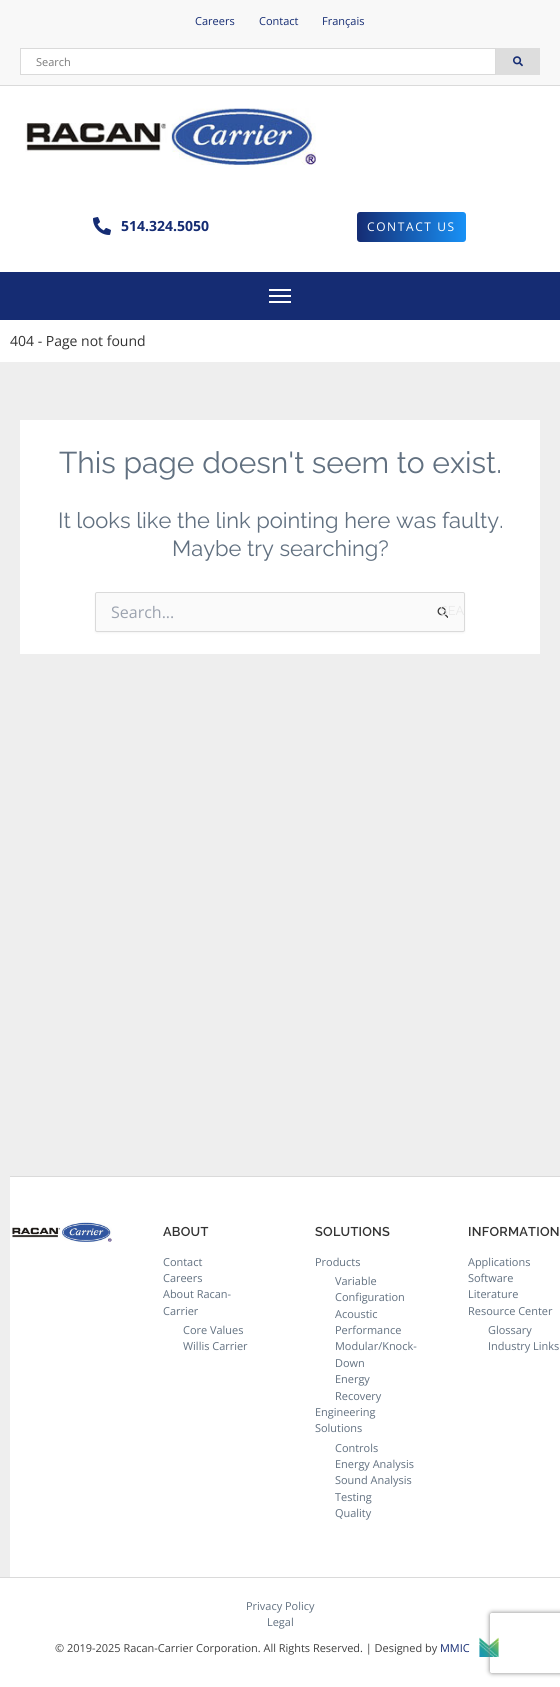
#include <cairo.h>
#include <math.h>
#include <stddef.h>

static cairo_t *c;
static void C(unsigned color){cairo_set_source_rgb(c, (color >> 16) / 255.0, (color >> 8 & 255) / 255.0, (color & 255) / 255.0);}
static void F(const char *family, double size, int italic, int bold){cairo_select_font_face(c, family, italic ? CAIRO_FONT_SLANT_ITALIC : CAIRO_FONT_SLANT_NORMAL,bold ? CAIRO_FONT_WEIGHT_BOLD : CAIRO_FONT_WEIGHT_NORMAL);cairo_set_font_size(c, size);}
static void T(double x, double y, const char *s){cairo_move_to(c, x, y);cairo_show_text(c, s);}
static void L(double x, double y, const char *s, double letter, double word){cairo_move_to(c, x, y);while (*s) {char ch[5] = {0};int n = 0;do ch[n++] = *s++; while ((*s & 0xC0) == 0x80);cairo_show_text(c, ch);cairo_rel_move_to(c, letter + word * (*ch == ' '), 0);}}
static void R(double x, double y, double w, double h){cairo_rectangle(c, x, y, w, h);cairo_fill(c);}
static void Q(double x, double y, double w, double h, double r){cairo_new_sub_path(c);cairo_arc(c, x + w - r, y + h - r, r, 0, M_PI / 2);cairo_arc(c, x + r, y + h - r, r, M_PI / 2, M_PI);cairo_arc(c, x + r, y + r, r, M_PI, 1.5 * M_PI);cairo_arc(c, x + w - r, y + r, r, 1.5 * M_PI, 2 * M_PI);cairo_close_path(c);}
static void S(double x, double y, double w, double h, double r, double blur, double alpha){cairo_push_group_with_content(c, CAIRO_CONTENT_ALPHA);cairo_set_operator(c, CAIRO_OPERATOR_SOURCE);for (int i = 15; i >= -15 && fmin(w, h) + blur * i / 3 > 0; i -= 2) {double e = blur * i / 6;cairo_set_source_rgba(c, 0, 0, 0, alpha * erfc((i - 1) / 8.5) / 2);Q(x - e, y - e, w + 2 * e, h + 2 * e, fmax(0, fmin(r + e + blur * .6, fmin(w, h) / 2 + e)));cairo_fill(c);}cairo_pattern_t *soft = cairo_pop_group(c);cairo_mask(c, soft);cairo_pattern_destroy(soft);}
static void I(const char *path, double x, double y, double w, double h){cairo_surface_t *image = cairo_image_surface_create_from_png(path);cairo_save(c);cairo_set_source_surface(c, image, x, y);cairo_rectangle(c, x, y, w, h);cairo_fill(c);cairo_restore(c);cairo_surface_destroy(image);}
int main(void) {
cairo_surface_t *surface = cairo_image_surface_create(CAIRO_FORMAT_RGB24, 560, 1687);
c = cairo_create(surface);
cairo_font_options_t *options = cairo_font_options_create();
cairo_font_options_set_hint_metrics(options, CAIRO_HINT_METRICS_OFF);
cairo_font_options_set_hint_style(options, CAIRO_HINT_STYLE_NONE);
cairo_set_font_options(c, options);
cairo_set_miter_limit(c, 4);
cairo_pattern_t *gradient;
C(0xeeeeee);
cairo_paint(c);
C(0xf8f8f8);
R(0,0,560,85);
C(0xdadada);
R(0,85,560,1);
F("Open Sans",11,0,0);
C(0x152c73);
T(195,25,"Careers");
T(259,25,"Contact");
T(322,25,"Français");
C(0xffffff);
cairo_rectangle(c,20.5,48.5,475,26);
cairo_fill_preserve(c);
C(0xdadada);
cairo_set_line_width(c,1);
cairo_stroke(c);
C(0x7a7a7a);
T(36,66,"Search");
C(0xdddddd);
R(496,48,44,27);
I("1.png",513,56,10,11);
C(0xffffff);
R(0,86,560,186);
I("2.png",25,108,291,57);
I("3.png",93,217,18,18);
F("Open Sans",14,0,1);
C(0x152c73);
T(121,231,"514.324.5050");
gradient = cairo_pattern_create_linear(357,227,466,227);
cairo_pattern_add_color_stop_rgba(gradient,0,0.082,0.173,0.451,1);
cairo_pattern_add_color_stop_rgba(gradient,1,0.094,0.569,0.965,1);
cairo_set_source(c,gradient);
cairo_pattern_destroy(gradient);
Q(357,212,109,30,3);
cairo_fill(c);
F("Open Sans",12,0,0);
C(0xffffff);
L(367,231,"CONTACT US",1.6,0);
C(0x152c73);
R(0,272,560,48);
C(0xffffff);
R(269,289,22,2);
R(269,295,22,2);
R(269,301,22,2);
R(0,320,560,42);
F("Open Sans",14,0,0);
C(0x333333);
T(10,346,"404 - Page not found");
C(0xffffff);
R(20,420,520,234);
F("Raleway",30,0,0);
C(0x617080);
T(59,473,"This page doesn't seem to exist.");
F("Raleway",21.9,0,0);
T(58,528,"It looks like the link pointing here was faulty.");
T(172,556,"Maybe try searching?");
C(0x000000);
S(95,593,370,40,2,1,.05);
C(0xfafafa);
Q(95.5,592.5,369,39,1.5);
cairo_fill_preserve(c);
C(0xdadada);
cairo_stroke(c);
F("Open Sans",16,0,0);
C(0x9ca3af);
T(111,618,"Search...");
I("4.png",437,607,11,11);
F("Raleway",12.75,0,0);
C(0xe8e8e8);
T(440,615,"SEA");
C(0xffffff);
R(10,1177,550,400);
C(0xdadada);
R(10,1176,550,1);
I("5.png",12,1222,100,20);
F("Raleway SemiBold",12.75,0,0);
C(0x333333);
L(163,1236,"ABOUT",.25,0);
F("Open Sans",10.95,0,0);
C(0x617080);
T(163,1266,"Contact");
T(163,1282,"Careers");
T(163,1298,"About Racan-");
T(163,1315,"Carrier");
T(183,1334,"Core Values");
T(183,1350,"Willis Carrier");
F("Raleway SemiBold",12.75,0,0);
C(0x333333);
L(315,1236,"SOLUTIONS",.25,0);
F("Open Sans",10.95,0,0);
C(0x617080);
T(315,1266,"Products");
T(335,1285,"Variable");
T(335,1301,"Configuration");
T(335,1318,"Acoustic");
T(335,1334,"Performance");
T(335,1350,"Modular/Knock-");
T(335,1367,"Down");
T(335,1383,"Energy");
T(335,1400,"Recovery");
T(315,1416,"Engineering");
T(315,1432,"Solutions");
T(335,1452,"Controls");
T(335,1468,"Energy Analysis");
T(335,1484,"Sound Analysis");
T(335,1501,"Testing");
T(335,1517,"Quality");
F("Raleway SemiBold",12.75,0,0);
C(0x333333);
L(468,1236,"INFORMATION",.25,0);
F("Open Sans",10.95,0,0);
C(0x617080);
T(468,1266,"Applications");
T(468,1282,"Software");
T(468,1298,"Literature");
T(468,1315,"Resource Center");
T(488,1334,"Glossary");
T(488,1350,"Industry Links");
C(0xffffff);
R(0,1578,560,109);
C(0xdadada);
R(0,1577,560,1);
C(0x617080);
T(246,1610,"Privacy Policy");
T(267,1626,"Legal");
C(0x404040);
T(55,1652,"© 2019-2025 Racan-Carrier Corporation. All Rights Reserved. | Designed by");
C(0x152c73);
T(440,1652,"MMIC");
I("6.png",479,1637,20,20);
cairo_save(c);
cairo_set_fill_rule(c,CAIRO_FILL_RULE_EVEN_ODD);
cairo_new_path(c);
cairo_move_to(c,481,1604);
cairo_line_to(c,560,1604);
cairo_line_to(c,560,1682);
cairo_line_to(c,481,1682);
cairo_close_path(c);
cairo_move_to(c,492,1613);
cairo_line_to(c,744,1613);
cairo_curve_to(c,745,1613,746,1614,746,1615);
cairo_line_to(c,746,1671);
cairo_curve_to(c,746,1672,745,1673,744,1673);
cairo_line_to(c,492,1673);
cairo_curve_to(c,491,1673,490,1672,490,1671);
cairo_line_to(c,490,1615);
cairo_curve_to(c,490,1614,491,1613,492,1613);
cairo_close_path(c);
cairo_clip(c);
C(0x808080);
S(490,1613,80,60,2,2.5,1);
cairo_restore(c);
cairo_surface_write_to_png(surface, "o.png");
cairo_font_options_destroy(options);
cairo_destroy(c);
cairo_surface_destroy(surface);
return 0;
}
